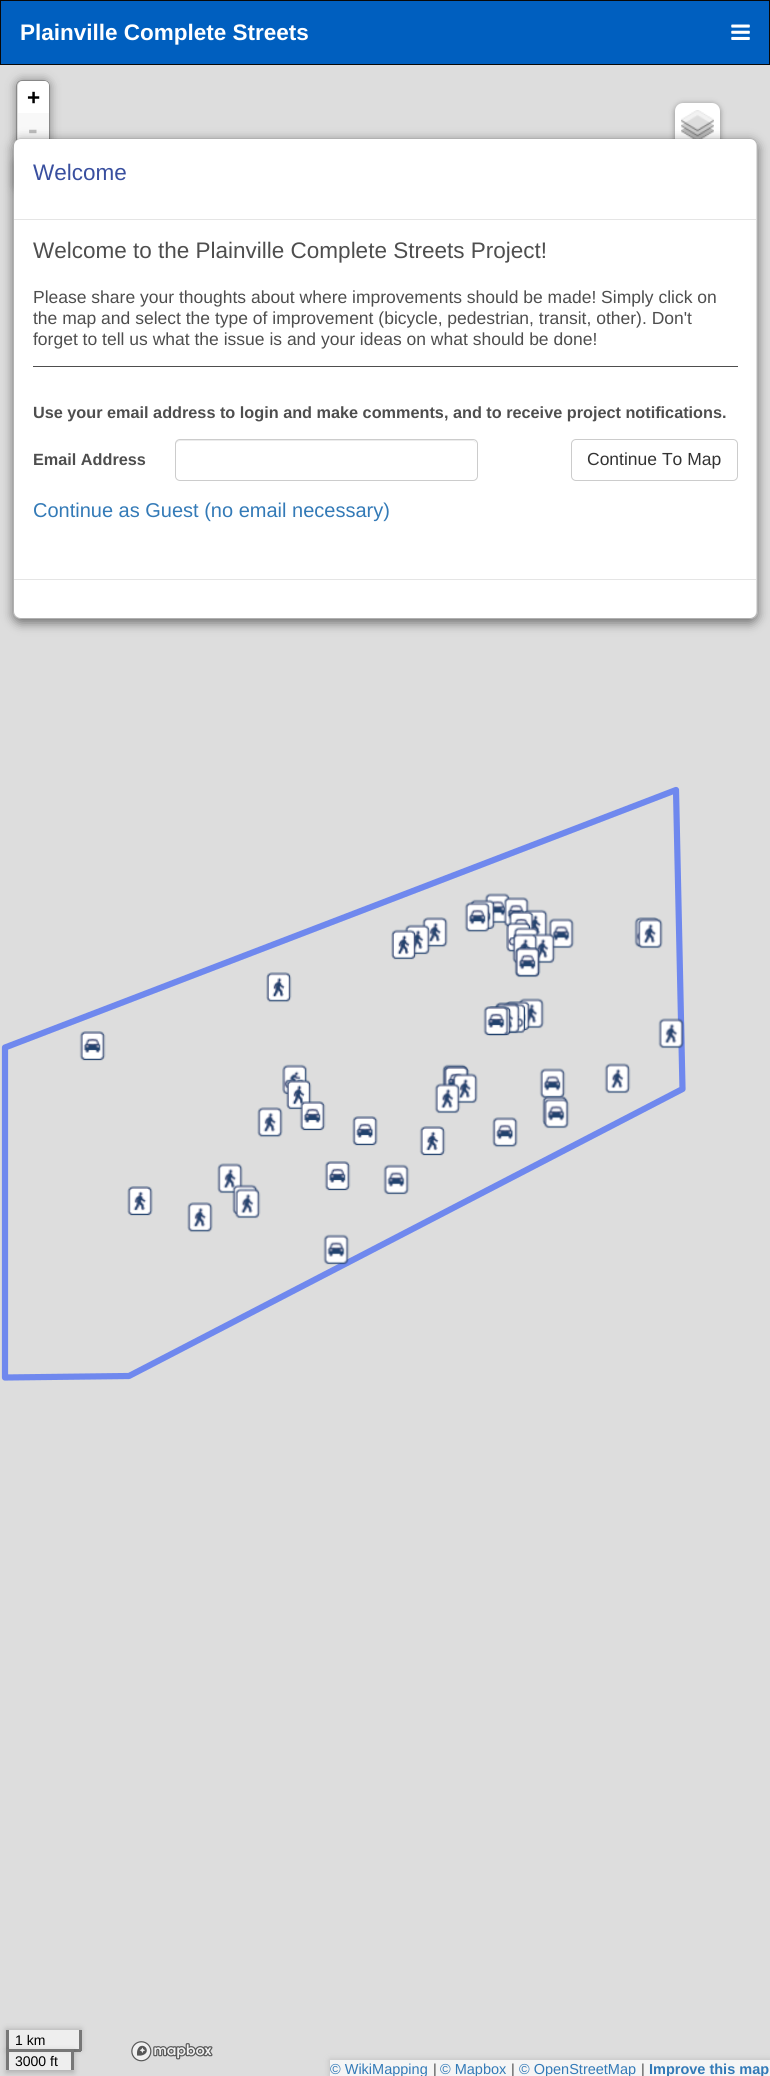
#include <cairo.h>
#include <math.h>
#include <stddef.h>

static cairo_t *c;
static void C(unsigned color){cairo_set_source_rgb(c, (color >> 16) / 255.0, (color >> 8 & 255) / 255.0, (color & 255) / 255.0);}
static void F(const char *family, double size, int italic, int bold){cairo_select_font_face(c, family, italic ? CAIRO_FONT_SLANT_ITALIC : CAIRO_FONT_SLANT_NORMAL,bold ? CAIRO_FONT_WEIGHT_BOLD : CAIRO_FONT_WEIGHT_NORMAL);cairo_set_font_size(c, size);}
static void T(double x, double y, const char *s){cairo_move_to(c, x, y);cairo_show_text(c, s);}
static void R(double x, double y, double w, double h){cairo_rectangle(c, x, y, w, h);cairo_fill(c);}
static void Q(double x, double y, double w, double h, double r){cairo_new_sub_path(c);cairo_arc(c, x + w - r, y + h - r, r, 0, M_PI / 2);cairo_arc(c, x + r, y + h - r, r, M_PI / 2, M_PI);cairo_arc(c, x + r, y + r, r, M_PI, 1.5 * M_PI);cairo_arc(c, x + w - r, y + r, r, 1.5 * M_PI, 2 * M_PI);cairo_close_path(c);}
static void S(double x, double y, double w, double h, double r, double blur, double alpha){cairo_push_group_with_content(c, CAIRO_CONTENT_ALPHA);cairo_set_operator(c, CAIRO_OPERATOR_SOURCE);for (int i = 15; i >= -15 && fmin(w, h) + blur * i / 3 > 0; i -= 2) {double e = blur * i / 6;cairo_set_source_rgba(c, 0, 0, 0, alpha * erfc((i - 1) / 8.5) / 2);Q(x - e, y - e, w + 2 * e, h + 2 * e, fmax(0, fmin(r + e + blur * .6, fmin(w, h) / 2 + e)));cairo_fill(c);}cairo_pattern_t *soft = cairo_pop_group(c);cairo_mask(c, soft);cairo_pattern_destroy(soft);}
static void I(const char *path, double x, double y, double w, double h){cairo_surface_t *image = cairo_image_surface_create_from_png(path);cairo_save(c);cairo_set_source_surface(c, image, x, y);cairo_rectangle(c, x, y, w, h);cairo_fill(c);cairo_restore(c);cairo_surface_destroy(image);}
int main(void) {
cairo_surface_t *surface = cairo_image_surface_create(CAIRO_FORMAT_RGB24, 770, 2076);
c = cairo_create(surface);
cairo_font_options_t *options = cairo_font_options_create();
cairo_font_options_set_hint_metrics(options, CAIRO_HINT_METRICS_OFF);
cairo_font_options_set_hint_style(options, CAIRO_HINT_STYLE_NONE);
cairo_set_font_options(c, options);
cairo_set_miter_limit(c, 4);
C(0xdddddd);
cairo_paint(c);
cairo_save(c);
cairo_set_fill_rule(c,CAIRO_FILL_RULE_EVEN_ODD);
cairo_new_path(c);
cairo_move_to(c,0,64);
cairo_line_to(c,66,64);
cairo_line_to(c,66,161);
cairo_line_to(c,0,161);
cairo_close_path(c);
cairo_move_to(c,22,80);
cairo_line_to(c,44,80);
cairo_curve_to(c,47.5,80,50,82.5,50,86);
cairo_line_to(c,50,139);
cairo_curve_to(c,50,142.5,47.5,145,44,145);
cairo_line_to(c,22,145);
cairo_curve_to(c,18.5,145,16,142.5,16,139);
cairo_line_to(c,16,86);
cairo_curve_to(c,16,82.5,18.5,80,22,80);
cairo_close_path(c);
cairo_clip(c);
C(0x000000);
S(16,80,34,65,6,5,.4);
cairo_restore(c);
C(0x005fbf);
cairo_rectangle(c,.5,.5,769,64);
cairo_fill_preserve(c);
C(0x080808);
cairo_set_line_width(c,1);
cairo_stroke(c);
F("Liberation Sans",22.5,0,1);
C(0xffffff);
T(20,40,"Plainville Complete Streets");
I("1.png",731,24,19,16);
Q(16.5,80.5,33,64,5.5);
C(0x888888);
cairo_stroke(c);
C(0xffffff);
cairo_new_path(c);
cairo_move_to(c,23,81);
cairo_line_to(c,44,81);
cairo_curve_to(c,47,81,49,83,49,86);
cairo_line_to(c,49,113);
cairo_line_to(c,18,113);
cairo_line_to(c,18,86);
cairo_curve_to(c,18,83,20,81,23,81);
cairo_close_path(c);
cairo_fill(c);
C(0x000000);
T(27,105,"+");
cairo_set_source_rgba(c,1,1,1,0.8);
R(18,113,31,27);
F("Liberation Sans",29,0,1);
C(0xbbbbbb);
T(28,139,"-");
C(0x000000);
S(16,158,34,33,6,5,.4);
cairo_save(c);
cairo_set_fill_rule(c,CAIRO_FILL_RULE_EVEN_ODD);
cairo_new_path(c);
cairo_move_to(c,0,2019);
cairo_line_to(c,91,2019);
cairo_line_to(c,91,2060);
cairo_line_to(c,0,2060);
cairo_close_path(c);
cairo_move_to(c,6,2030);
cairo_line_to(c,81,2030);
cairo_line_to(c,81,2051);
cairo_line_to(c,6,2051);
cairo_close_path(c);
cairo_clip(c);
S(6,2029,75,21,0,3,.2);
cairo_restore(c);
cairo_set_source_rgba(c,1,1,1,0.5);
R(9,2030,70,19);
C(0x777777);
R(79,2030,3,21);
R(74,2049,7,3);
R(6,2030,3,21);
F("Liberation Sans",14,0,0);
C(0x000000);
T(15,2045,"1 km");
cairo_save(c);
cairo_set_fill_rule(c,CAIRO_FILL_RULE_EVEN_ODD);
cairo_new_path(c);
cairo_move_to(c,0,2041);
cairo_line_to(c,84,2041);
cairo_line_to(c,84,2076);
cairo_line_to(c,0,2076);
cairo_close_path(c);
cairo_move_to(c,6,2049);
cairo_line_to(c,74,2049);
cairo_line_to(c,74,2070);
cairo_line_to(c,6,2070);
cairo_close_path(c);
cairo_clip(c);
C(0x000000);
S(6,2051,68,22,0,3,.2);
cairo_restore(c);
cairo_set_source_rgba(c,1,1,1,0.5);
R(9,2052,62,18);
C(0x777777);
R(6,2049,68,3);
R(71,2049,3,21);
R(6,2049,3,21);
C(0x000000);
T(15,2066,"3000 ft");
cairo_new_path(c);
cairo_move_to(c,676,790);
cairo_line_to(c,5,1047.5);
cairo_line_to(c,5,1377.5);
cairo_line_to(c,129,1376);
cairo_line_to(c,682.5,1089);
cairo_line_to(c,676,790);
C(0x6f88ee);
cairo_set_line_width(c,6.2);
cairo_set_line_cap(c,CAIRO_LINE_CAP_ROUND);
cairo_set_line_join(c,CAIRO_LINE_JOIN_ROUND);
cairo_stroke(c);
I("3.png",484,893,27,31);
I("2.png",469,899,27,31);
I("4.png",503,897,27,31);
I("5.png",422,917,26,31);
I("6.png",464,902,27,31);
I("8.png",523,909,25,27);
I("7.png",508,911,27,19);
I("9.png",548,918,27,31);
I("10.png",634,917,26,31);
I("11.png",404,924,27,31);
I("12.png",506,922,25,31);
I("13.png",637,918,26,31);
I("14.png",391,929,26,31);
I("15.png",513,927,27,29);
I("17.png",530,933,26,31);
I("16.png",512,933,26,31);
I("18.png",514,947,27,31);
I("19.png",514,947,27,31);
I("20.png",266,972,26,31);
I("21.png",518,998,27,31);
I("22.png",505,1001,26,30);
I("23.png",494,1002,26,31);
I("26.png",502,1003,24,31);
I("24.png",494,1003,27,31);
I("28.png",486,1006,26,30);
I("25.png",483,1006,26,30);
I("27.png",79,1031,27,30);
I("29.png",658,1018,27,31);
I("30.png",282,1064,26,31);
I("31.png",442,1064,26,22);
I("32.png",604,1063,27,31);
I("33.png",443,1066,27,20);
I("34.png",443,1066,27,20);
I("3.png",539,1068,27,31);
I("35.png",286,1079,26,31);
I("37.png",452,1073,26,31);
I("36.png",434,1083,27,31);
I("38.png",542,1096,26,30);
I("5.png",257,1107,26,31);
I("39.png",299,1101,27,30);
I("40.png",352,1116,26,30);
I("41.png",419,1126,27,30);
I("42.png",492,1117,26,31);
I("43.png",543,1098,27,31);
I("44.png",217,1163,26,31);
I("27.png",324,1161,27,30);
I("45.png",383,1164,27,31);
I("46.png",127,1186,26,30);
I("47.png",232,1184,26,31);
I("5.png",187,1202,26,31);
I("48.png",234,1188,27,31);
I("49.png",323,1234,27,31);
C(0x000000);
S(675,104,45,45,8,3,.4);
C(0xffffff);
Q(675,103,45,45,8);
cairo_fill(c);
I("50.png",681,110,33,29);
I("51.png",131,2041,82,21);
C(0xbbbbbb);
S(330,2060,440,16,0,3,1);
C(0xf5f5f5);
R(330,2060,440,16);
F("Liberation Sans",14.5,0,0);
C(0x337ab7);
T(330,2074,"© WikiMapping");
C(0x4e4e4e);
T(433,2074,"|");
C(0x337ab7);
T(440,2074,"© Mapbox");
C(0x4e4e4e);
T(511,2074,"|");
C(0x337ab7);
T(519,2074,"© OpenStreetMap");
C(0x4e4e4e);
T(641,2074,"|");
F("Liberation Sans",14.5,0,1);
C(0x337ab7);
T(649,2074,"Improve this map");
cairo_save(c);
cairo_set_fill_rule(c,CAIRO_FILL_RULE_EVEN_ODD);
cairo_new_path(c);
cairo_move_to(c,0,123);
cairo_line_to(c,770,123);
cairo_line_to(c,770,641);
cairo_line_to(c,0,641);
cairo_close_path(c);
cairo_move_to(c,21,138);
cairo_line_to(c,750,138);
cairo_curve_to(c,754.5,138,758,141.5,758,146);
cairo_line_to(c,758,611);
cairo_curve_to(c,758,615.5,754.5,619,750,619);
cairo_line_to(c,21,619);
cairo_curve_to(c,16.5,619,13,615.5,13,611);
cairo_line_to(c,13,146);
cairo_curve_to(c,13,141.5,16.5,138,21,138);
cairo_close_path(c);
cairo_clip(c);
C(0x000000);
S(13,141,745,482,8,5.5,.5);
cairo_restore(c);
C(0xffffff);
Q(14,139,742,479,6);
cairo_fill(c);
Q(13.5,138.5,744,480,7.5);
cairo_set_source_rgba(c,0,0,0,0.2);
cairo_set_line_width(c,1);
cairo_set_line_cap(c,CAIRO_LINE_CAP_BUTT);
cairo_set_line_join(c,CAIRO_LINE_JOIN_MITER);
cairo_stroke(c);
C(0xe5e5e5);
R(14,219,742,1);
F("Liberation Sans",22.5,0,0);
C(0x394f9f);
T(33,180,"Welcome");
C(0x4e4e4e);
T(33,258,"Welcome to the Plainville Complete Streets Project!");
F("Liberation Sans",17.5,0,0);
T(33,303,"Please share your thoughts about where improvements should be made! Simply click on");
T(33,324,"the map and select the type of improvement (bicycle, pedestrian, transit, other). Don't");
T(33,345,"forget to tell us what the issue is and your ideas on what should be done!");
R(33,366,705,1);
F("Liberation Sans",16.25,0,1);
T(33,418,"Use your email address to login and make comments, and to receive project notifications.");
T(33,465,"Email Address");
C(0xececec);
cairo_new_path(c);
cairo_move_to(c,180,441);
cairo_line_to(c,472,441);
cairo_curve_to(c,475,441,476,443,476,445);
cairo_curve_to(c,476,442,475,440,472,440);
cairo_line_to(c,180,440);
cairo_curve_to(c,177,440,176,442,176,445);
cairo_curve_to(c,176,443,178,441,180,441);
cairo_close_path(c);
cairo_fill(c);
Q(175.5,439.5,302,41,4.5);
C(0xcccccc);
cairo_stroke(c);
Q(571.5,439.5,166,41,4.5);
cairo_stroke(c);
F("Liberation Sans",17.5,0,0);
C(0x333333);
T(587,465,"Continue To Map");
F("Liberation Sans",20,0,0);
C(0x337ab7);
T(33,517,"Continue as Guest (no email necessary)");
C(0xe5e5e5);
R(14,579,742,1);
cairo_surface_write_to_png(surface, "o.png");
cairo_font_options_destroy(options);
cairo_destroy(c);
cairo_surface_destroy(surface);
return 0;
}
